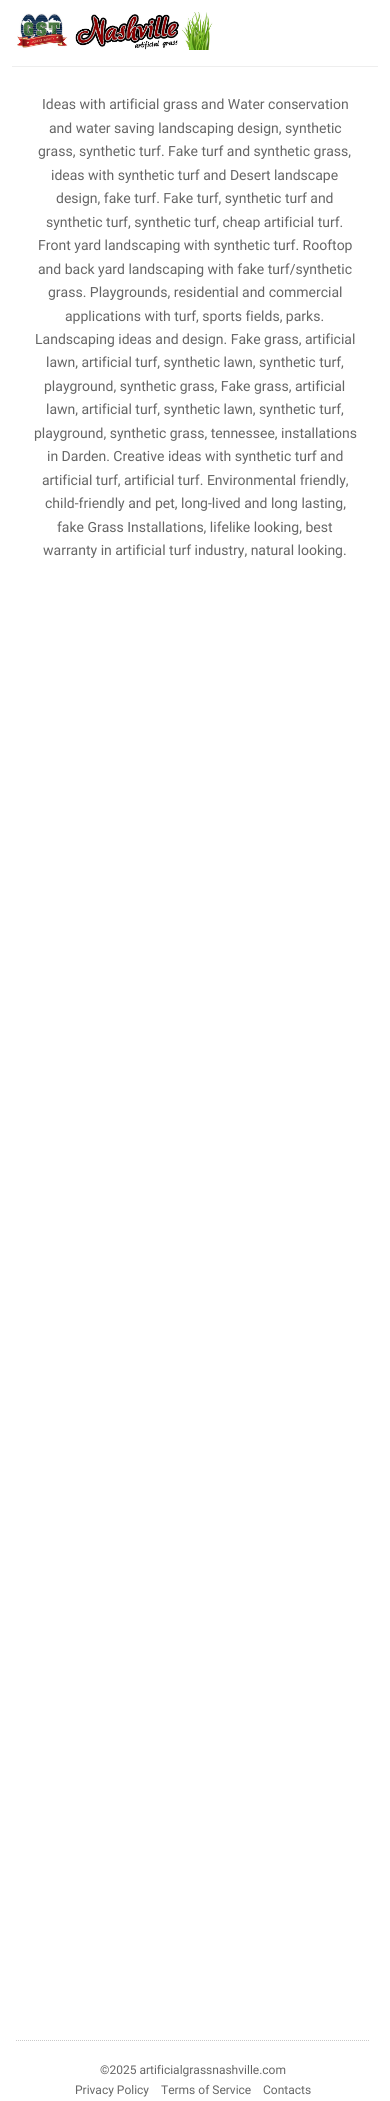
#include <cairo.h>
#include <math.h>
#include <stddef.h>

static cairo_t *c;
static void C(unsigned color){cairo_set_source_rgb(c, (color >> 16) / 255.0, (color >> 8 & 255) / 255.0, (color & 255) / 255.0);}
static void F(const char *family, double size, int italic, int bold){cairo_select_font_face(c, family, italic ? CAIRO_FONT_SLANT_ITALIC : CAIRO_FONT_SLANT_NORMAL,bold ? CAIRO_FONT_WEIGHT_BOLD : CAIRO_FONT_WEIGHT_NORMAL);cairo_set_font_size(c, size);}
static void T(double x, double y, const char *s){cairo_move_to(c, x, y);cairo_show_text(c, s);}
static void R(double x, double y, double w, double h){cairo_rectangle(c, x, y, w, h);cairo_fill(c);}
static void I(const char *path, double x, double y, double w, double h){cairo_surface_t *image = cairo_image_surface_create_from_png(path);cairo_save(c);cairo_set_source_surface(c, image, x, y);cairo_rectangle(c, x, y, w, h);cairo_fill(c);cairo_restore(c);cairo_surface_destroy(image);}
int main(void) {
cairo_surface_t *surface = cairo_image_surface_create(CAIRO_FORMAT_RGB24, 390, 2101);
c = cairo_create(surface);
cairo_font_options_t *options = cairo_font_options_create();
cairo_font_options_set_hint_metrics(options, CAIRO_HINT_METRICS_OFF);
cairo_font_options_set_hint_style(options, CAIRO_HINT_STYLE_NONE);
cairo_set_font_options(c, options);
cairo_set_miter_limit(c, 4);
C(0xffffff);
cairo_paint(c);
I("1.png",17,12,196,38);
C(0xeeeeee);
R(12,66,366,1);
F("Roboto",14,0,0);
C(0x666666);
T(42,109,"Ideas with artificial grass and Water conservation");
T(49,133,"and water saving landscaping design, synthetic");
T(38,156,"grass, synthetic turf. Fake turf and synthetic grass,");
T(51,180,"ideas with synthetic turf and Desert landscape");
T(56,203,"design, fake turf. Fake turf, synthetic turf and");
T(46,227,"synthetic turf, synthetic turf, cheap artificial turf.");
T(38,250,"Front yard landscaping with synthetic turf. Rooftop");
T(38,274,"and back yard landscaping with fake turf/synthetic");
T(48,297,"grass. Playgrounds, residential and commercial");
T(65,321,"applications with turf, sports fields, parks.");
T(35,344,"Landscaping ideas and design. Fake grass, artificial");
T(46,367,"lawn, artificial turf, synthetic lawn, synthetic turf,");
T(44,391,"playground, synthetic grass, Fake grass, artificial");
T(46,414,"lawn, artificial turf, synthetic lawn, synthetic turf,");
T(34,438,"playground, synthetic grass, tennessee, installations");
T(47,461,"in Darden. Creative ideas with synthetic turf and");
T(42,485,"artificial turf, artificial turf. Environmental friendly,");
T(45,508,"child-friendly and pet, long-lived and long lasting,");
T(57,532,"fake Grass Installations, lifelike looking, best");
T(43,555,"warranty in artificial turf industry, natural looking.");
cairo_new_path(c);
cairo_move_to(c,16,2040.5);
cairo_line_to(c,370,2040.5);
C(0xcbcbcb);
cairo_set_line_width(c,1);
cairo_set_dash(c,(double[]){1,1},2,0);
cairo_stroke(c);
F("Roboto",12,0,0);
C(0x666666);
T(100,2074,"©2025 artificialgrassnashville.com");
T(75,2094,"Privacy Policy");
T(161,2094,"Terms of Service");
T(263,2094,"Contacts");
cairo_surface_write_to_png(surface, "o.png");
cairo_font_options_destroy(options);
cairo_destroy(c);
cairo_surface_destroy(surface);
return 0;
}
